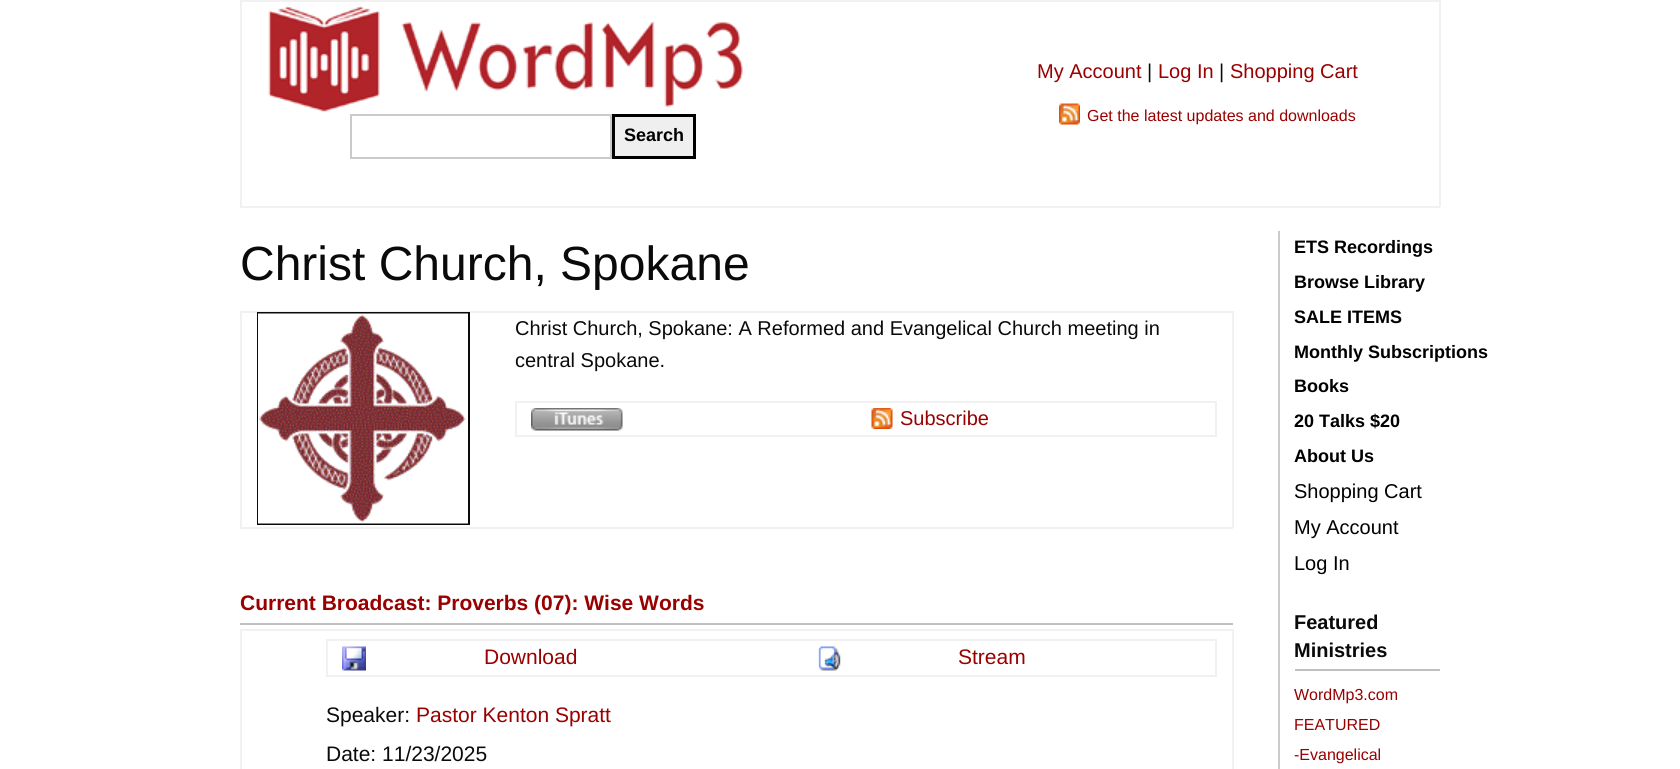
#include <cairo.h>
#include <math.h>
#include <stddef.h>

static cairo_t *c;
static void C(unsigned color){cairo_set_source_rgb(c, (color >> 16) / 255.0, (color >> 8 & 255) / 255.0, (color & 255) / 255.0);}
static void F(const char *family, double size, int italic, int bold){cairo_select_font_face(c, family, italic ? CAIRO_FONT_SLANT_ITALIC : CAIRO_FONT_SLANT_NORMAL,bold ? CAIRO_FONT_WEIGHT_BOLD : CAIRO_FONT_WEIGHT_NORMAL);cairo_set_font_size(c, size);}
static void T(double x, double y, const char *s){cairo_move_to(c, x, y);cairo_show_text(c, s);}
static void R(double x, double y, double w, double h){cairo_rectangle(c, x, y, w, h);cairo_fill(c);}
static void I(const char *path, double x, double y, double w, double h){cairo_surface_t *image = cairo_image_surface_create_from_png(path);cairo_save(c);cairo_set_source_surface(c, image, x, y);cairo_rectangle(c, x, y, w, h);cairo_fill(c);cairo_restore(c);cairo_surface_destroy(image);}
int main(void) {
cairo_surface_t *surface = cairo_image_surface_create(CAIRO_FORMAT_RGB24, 1680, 769);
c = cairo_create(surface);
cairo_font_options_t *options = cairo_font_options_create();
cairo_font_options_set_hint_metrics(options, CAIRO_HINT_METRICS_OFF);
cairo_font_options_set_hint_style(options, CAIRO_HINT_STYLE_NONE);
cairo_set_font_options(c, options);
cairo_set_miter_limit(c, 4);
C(0xffffff);
cairo_paint(c);
C(0xf1f1f1);
R(240,0,1200,2);
R(1439,0,2,207);
R(240,206,1200,2);
R(240,0,2,207);
F("Liberation Sans",20,0,0);
C(0x990000);
T(1037,78,"My Account");
C(0x0a0a0a);
T(1147,78,"|");
C(0x990000);
T(1158,78,"Log In");
C(0x0a0a0a);
T(1219,78,"|");
C(0x990000);
T(1230,78,"Shopping Cart");
I("1.png",1059,103,21,22);
F("Liberation Sans",16,0,0);
T(1087,121,"Get the latest updates and downloads");
I("2.png",268,6,475,106);
cairo_rectangle(c,351,115,260,43);
C(0xcacaca);
cairo_stroke(c);
C(0xefefef);
cairo_rectangle(c,613.5,115.5,81,42);
cairo_fill_preserve(c);
C(0x000000);
cairo_set_line_width(c,3);
cairo_stroke(c);
F("Liberation Sans",18,0,1);
T(624,141,"Search");
F("Liberation Sans",48,0,0);
C(0x0a0a0a);
T(240,280,"Christ Church, Spokane");
C(0xf1f1f1);
R(240,311,993,2);
R(1232,311,2,217);
R(240,527,993,2);
R(240,311,2,217);
cairo_rectangle(c,258,313,211,211);
C(0x0a0a0a);
cairo_set_line_width(c,2);
cairo_stroke(c);
I("3.png",258,313,210,211);
F("Liberation Sans",20,0,0);
T(515,335,"Christ Church, Spokane: A Reformed and Evangelical Church meeting in");
T(515,367,"central Spokane.");
C(0xf1f1f1);
R(515,401,702,2);
R(1215,401,2,36);
R(515,435,702,2);
R(515,401,2,36);
I("4.png",531,408,92,23);
I("5.png",871,408,22,21);
C(0x990000);
T(900,425,"Subscribe");
C(0xc0c0c0);
R(240,623,993,2);
F("Liberation Sans",21,0,1);
C(0x990000);
T(240,610,"Current Broadcast: Proverbs (07): Wise Words");
C(0xf1f1f1);
R(240,629,993,2);
R(1232,629,2,140);
R(240,629,2,140);
R(326,639,891,2);
R(1215,639,2,38);
R(326,675,891,2);
R(326,639,2,38);
I("6.png",342,646,24,25);
F("Liberation Sans",21,0,0);
C(0x990000);
T(484,664,"Download");
I("7.png",818,646,23,25);
T(958,664,"Stream");
C(0x0a0a0a);
T(326,722,"Speaker:");
C(0x990000);
T(416,722,"Pastor Kenton Spratt");
C(0x0a0a0a);
T(326,761,"Date: 11/23/2025");
C(0xcccccc);
R(1278,231,2,538);
F("Liberation Sans",18,0,1);
C(0x000000);
T(1294,253,"ETS Recordings");
T(1294,288,"Browse Library");
T(1294,323,"SALE ITEMS");
T(1294,358,"Monthly Subscriptions");
T(1294,392,"Books");
T(1294,427,"20 Talks $20");
T(1294,462,"About Us");
F("Liberation Sans",20,0,0);
T(1294,498,"Shopping Cart");
T(1294,534,"My Account");
T(1294,570,"Log In");
C(0xc0c0c0);
R(1295,669,145,2);
F("Liberation Sans",20,0,1);
C(0x0a0a0a);
T(1294,629,"Featured");
T(1294,657,"Ministries");
F("Liberation Sans",16,0,0);
C(0x990000);
T(1294,700,"WordMp3.com");
T(1294,730,"FEATURED");
T(1294,760,"-Evangelical");
cairo_surface_write_to_png(surface, "o.png");
cairo_font_options_destroy(options);
cairo_destroy(c);
cairo_surface_destroy(surface);
return 0;
}
